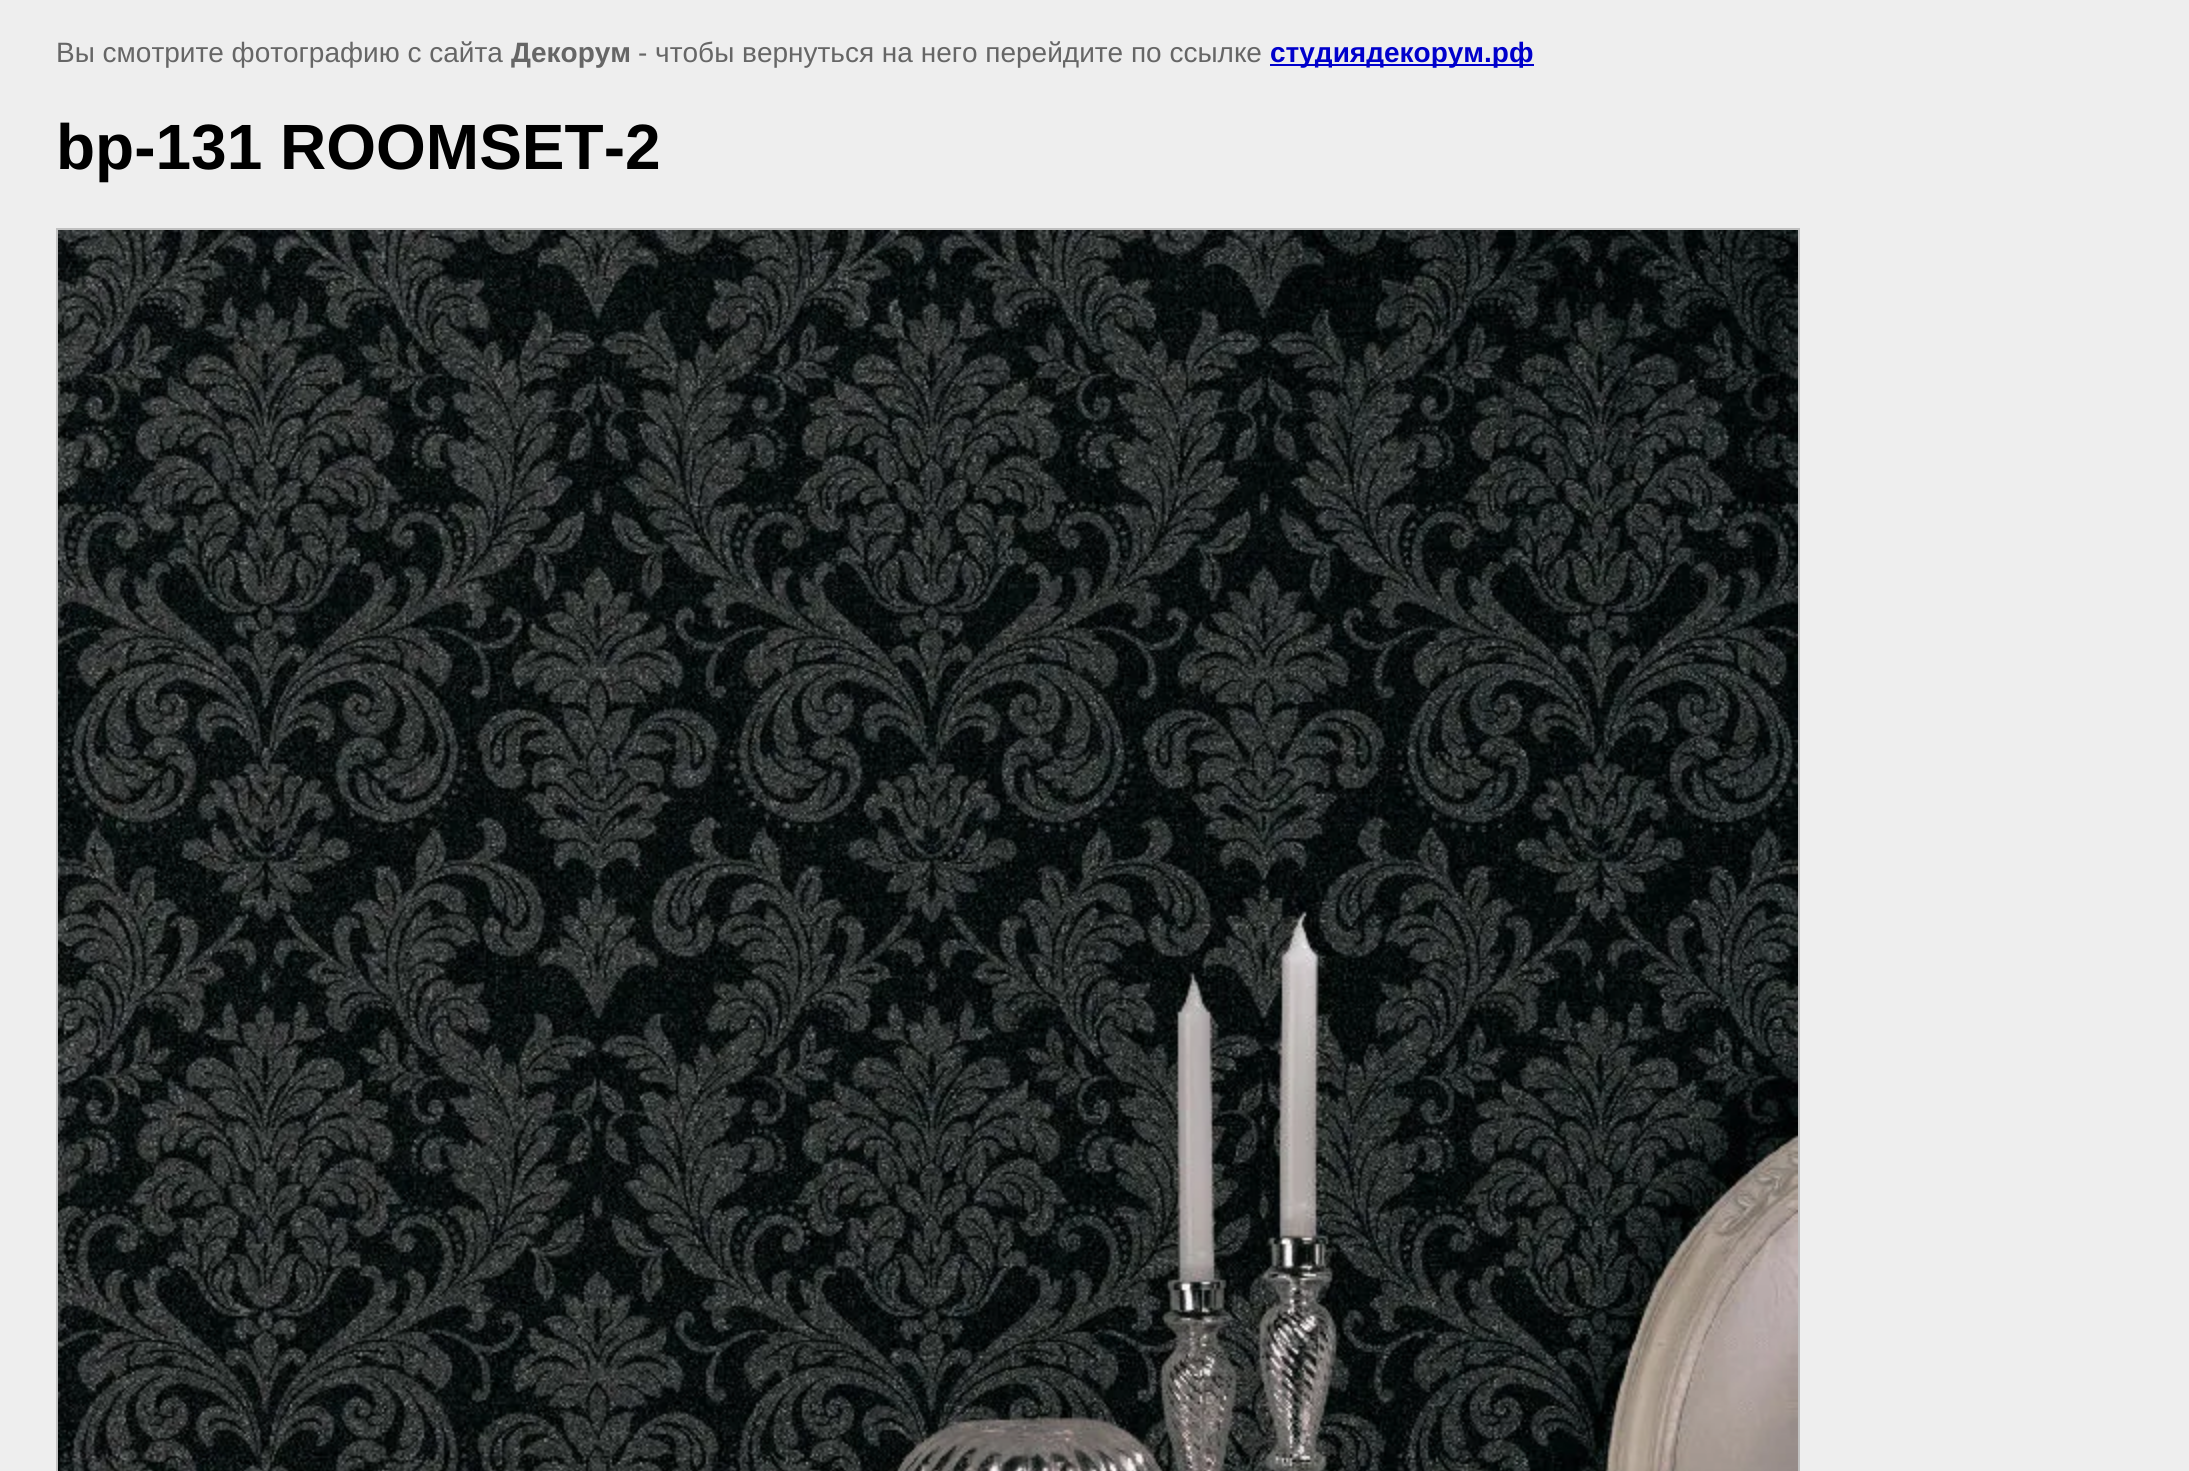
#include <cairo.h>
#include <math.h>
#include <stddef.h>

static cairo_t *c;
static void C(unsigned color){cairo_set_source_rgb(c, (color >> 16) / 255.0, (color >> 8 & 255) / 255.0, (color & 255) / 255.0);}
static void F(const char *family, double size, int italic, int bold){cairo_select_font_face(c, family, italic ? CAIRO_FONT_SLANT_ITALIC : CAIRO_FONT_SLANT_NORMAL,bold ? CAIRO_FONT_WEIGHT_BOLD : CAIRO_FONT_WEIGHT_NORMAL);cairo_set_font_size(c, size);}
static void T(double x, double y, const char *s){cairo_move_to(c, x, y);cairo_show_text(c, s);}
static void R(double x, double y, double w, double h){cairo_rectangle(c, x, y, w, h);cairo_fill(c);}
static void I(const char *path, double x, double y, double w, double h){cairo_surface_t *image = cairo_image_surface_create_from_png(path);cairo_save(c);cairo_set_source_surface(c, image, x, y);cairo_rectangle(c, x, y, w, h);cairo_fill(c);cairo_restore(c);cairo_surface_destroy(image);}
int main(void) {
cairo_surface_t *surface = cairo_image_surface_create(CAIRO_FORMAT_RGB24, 2189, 1471);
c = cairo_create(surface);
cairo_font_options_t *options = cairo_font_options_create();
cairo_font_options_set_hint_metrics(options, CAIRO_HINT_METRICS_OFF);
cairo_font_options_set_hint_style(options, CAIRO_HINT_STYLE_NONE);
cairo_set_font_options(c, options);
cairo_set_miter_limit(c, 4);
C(0xeeeeee);
cairo_paint(c);
F("Liberation Sans",28,0,0);
C(0x666666);
T(56,62,"Вы смотрите фотографию с сайта");
F("Liberation Sans",28,0,1);
T(511,62,"Декорум");
F("Liberation Sans",28,0,0);
T(638,62,"- чтобы вернуться на него перейдите по ссылке");
C(0x0000cc);
R(1270,64,264,2);
F("Liberation Sans",28,0,1);
T(1270,62,"студиядекорум.рф");
F("Liberation Sans",64,0,1);
C(0x000000);
T(56,169,"bp-131 ROOMSET-2");
cairo_rectangle(c,57,229,1742,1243);
C(0xc0c0c0);
cairo_stroke(c);
I("1.png",58,230,1740,1241);
cairo_surface_write_to_png(surface, "o.png");
cairo_font_options_destroy(options);
cairo_destroy(c);
cairo_surface_destroy(surface);
return 0;
}
